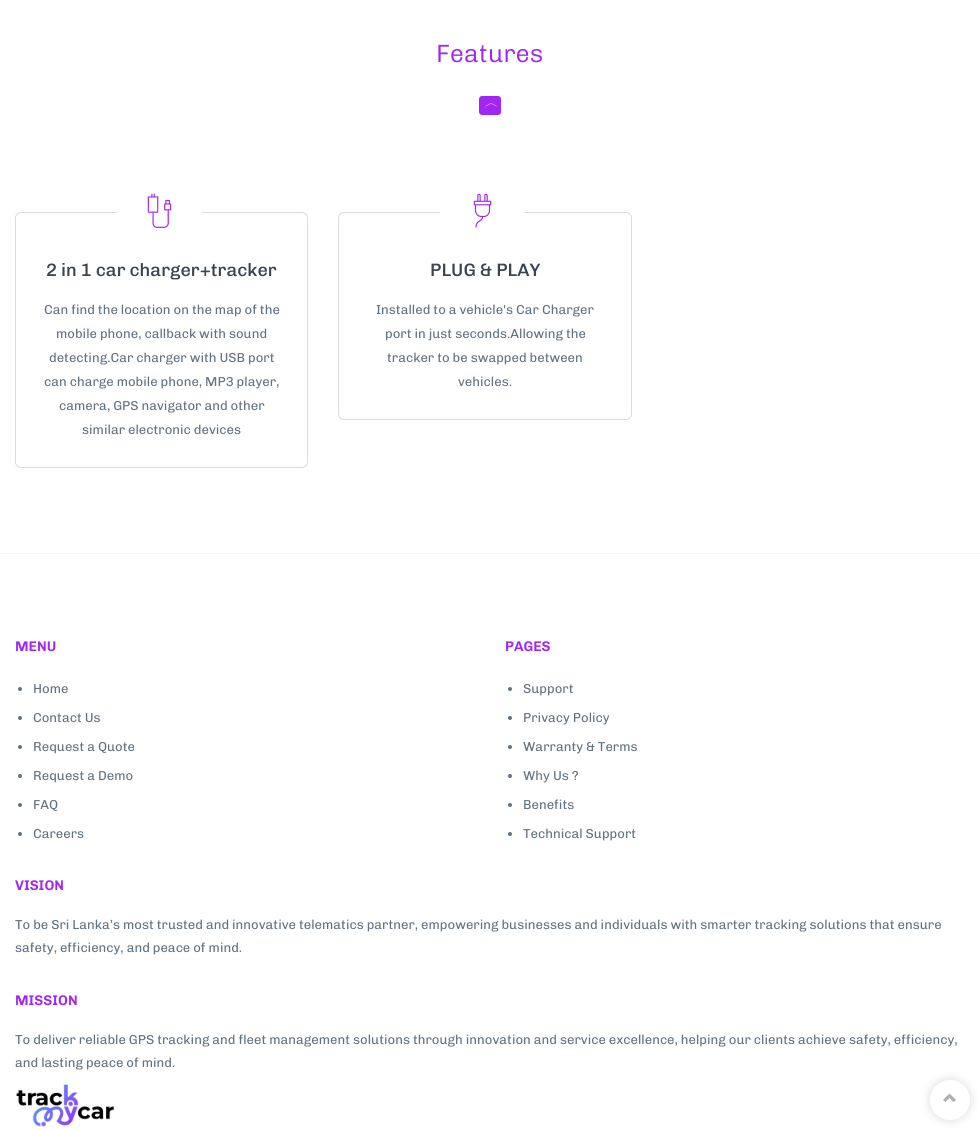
#include <cairo.h>
#include <math.h>
#include <stddef.h>

static cairo_t *c;
static void C(unsigned color){cairo_set_source_rgb(c, (color >> 16) / 255.0, (color >> 8 & 255) / 255.0, (color & 255) / 255.0);}
static void F(const char *family, double size, int italic, int bold){cairo_select_font_face(c, family, italic ? CAIRO_FONT_SLANT_ITALIC : CAIRO_FONT_SLANT_NORMAL,bold ? CAIRO_FONT_WEIGHT_BOLD : CAIRO_FONT_WEIGHT_NORMAL);cairo_set_font_size(c, size);}
static void T(double x, double y, const char *s){cairo_move_to(c, x, y);cairo_show_text(c, s);}
static void R(double x, double y, double w, double h){cairo_rectangle(c, x, y, w, h);cairo_fill(c);}
static void Q(double x, double y, double w, double h, double r){cairo_new_sub_path(c);cairo_arc(c, x + w - r, y + h - r, r, 0, M_PI / 2);cairo_arc(c, x + r, y + h - r, r, M_PI / 2, M_PI);cairo_arc(c, x + r, y + r, r, M_PI, 1.5 * M_PI);cairo_arc(c, x + w - r, y + r, r, 1.5 * M_PI, 2 * M_PI);cairo_close_path(c);}
static void S(double x, double y, double w, double h, double r, double blur, double alpha){cairo_push_group_with_content(c, CAIRO_CONTENT_ALPHA);cairo_set_operator(c, CAIRO_OPERATOR_SOURCE);for (int i = 15; i >= -15 && fmin(w, h) + blur * i / 3 > 0; i -= 2) {double e = blur * i / 6;cairo_set_source_rgba(c, 0, 0, 0, alpha * erfc((i - 1) / 8.5) / 2);Q(x - e, y - e, w + 2 * e, h + 2 * e, fmax(0, fmin(r + e + blur * .6, fmin(w, h) / 2 + e)));cairo_fill(c);}cairo_pattern_t *soft = cairo_pop_group(c);cairo_mask(c, soft);cairo_pattern_destroy(soft);}
static void I(const char *path, double x, double y, double w, double h){cairo_surface_t *image = cairo_image_surface_create_from_png(path);cairo_save(c);cairo_set_source_surface(c, image, x, y);cairo_rectangle(c, x, y, w, h);cairo_fill(c);cairo_restore(c);cairo_surface_destroy(image);}
int main(void) {
cairo_surface_t *surface = cairo_image_surface_create(CAIRO_FORMAT_RGB24, 980, 1130);
c = cairo_create(surface);
cairo_font_options_t *options = cairo_font_options_create();
cairo_font_options_set_hint_metrics(options, CAIRO_HINT_METRICS_OFF);
cairo_font_options_set_hint_style(options, CAIRO_HINT_STYLE_NONE);
cairo_set_font_options(c, options);
cairo_set_miter_limit(c, 4);
C(0xffffff);
cairo_paint(c);
F("Chivo Light",25,0,0);
C(0xa325f1);
T(436,62,"Features");
Q(479,96,22,19,3);
cairo_fill(c);
I("1.png",485,103,12,4);
Q(15.5,212.5,292,255,5.5);
C(0xdcdcdc);
cairo_set_line_width(c,1);
cairo_stroke(c);
C(0xffffff);
cairo_arc(c,159.5,210.5,42.5,0,2 * M_PI);
cairo_fill(c);
I("2.png",147,193,25,35);
F("Chivo Medium",18,0,0);
C(0x3b444e);
T(46,276,"2 in 1 car charger+tracker");
F("Chivo",13,0,0);
C(0x637280);
T(44,314,"Can find the location on the map of the");
T(56,338,"mobile phone, callback with sound");
T(49,362,"detecting.Car charger with USB port");
T(44,386,"can charge mobile phone, MP3 player,");
T(59,410,"camera, GPS navigator and other");
T(82,434,"similar electronic devices");
Q(338.5,212.5,293,207,5.5);
C(0xdcdcdc);
cairo_stroke(c);
C(0xffffff);
cairo_arc(c,482.5,210.5,42.5,0,2 * M_PI);
cairo_fill(c);
I("3.png",473,193,19,35);
F("Chivo Medium",18,0,0);
C(0x3b444e);
T(430,276,"PLUG & PLAY");
F("Chivo",13,0,0);
C(0x637280);
T(376,314,"Installed to a vehicle's Car Charger");
T(385,338,"port in just seconds.Allowing the");
T(387,362,"tracker to be swapped between");
T(458,386,"vehicles.");
C(0xf7f7f7);
R(0,553,980,1);
F("Chivo SemiBold",14,0,0);
C(0xa325f1);
T(15,651,"MENU");
C(0x637280);
cairo_new_path(c);
cairo_arc(c,20,689,2,0,2 * M_PI);
cairo_fill(c);
F("Chivo",13,0,0);
T(33,693,"Home");
cairo_new_path(c);
cairo_arc(c,20,718,2,0,2 * M_PI);
cairo_fill(c);
T(33,722,"Contact Us");
cairo_new_path(c);
cairo_arc(c,20,747,2,0,2 * M_PI);
cairo_fill(c);
T(33,751,"Request a Quote");
cairo_new_path(c);
cairo_arc(c,20,776,2,0,2 * M_PI);
cairo_fill(c);
T(33,780,"Request a Demo");
cairo_new_path(c);
cairo_arc(c,20,805,2,0,2 * M_PI);
cairo_fill(c);
T(33,809,"FAQ");
cairo_new_path(c);
cairo_arc(c,20,834,2,0,2 * M_PI);
cairo_fill(c);
T(33,838,"Careers");
F("Chivo SemiBold",14,0,0);
C(0xa325f1);
T(505,651,"PAGES");
C(0x637280);
cairo_new_path(c);
cairo_arc(c,510,689,2,0,2 * M_PI);
cairo_fill(c);
F("Chivo",13,0,0);
T(523,693,"Support");
cairo_new_path(c);
cairo_arc(c,510,718,2,0,2 * M_PI);
cairo_fill(c);
T(523,722,"Privacy Policy");
cairo_new_path(c);
cairo_arc(c,510,747,2,0,2 * M_PI);
cairo_fill(c);
T(523,751,"Warranty & Terms");
cairo_new_path(c);
cairo_arc(c,510,776,2,0,2 * M_PI);
cairo_fill(c);
T(523,780,"Why Us ?");
cairo_new_path(c);
cairo_arc(c,510,805,2,0,2 * M_PI);
cairo_fill(c);
T(523,809,"Benefits");
cairo_new_path(c);
cairo_arc(c,510,834,2,0,2 * M_PI);
cairo_fill(c);
T(523,838,"Technical Support");
F("Chivo SemiBold",14,0,0);
C(0xa325f1);
T(15,890,"VISION");
F("Chivo",13,0,0);
C(0x637280);
T(15,929,"To be Sri Lanka’s most trusted and innovative telematics partner, empowering businesses and individuals with smarter tracking solutions that ensure");
T(15,952,"safety, efficiency, and peace of mind.");
F("Chivo SemiBold",14,0,0);
C(0xa325f1);
T(15,1005,"MISSION");
F("Chivo",13,0,0);
C(0x637280);
T(15,1044,"To deliver reliable GPS tracking and fleet management solutions through innovation and service excellence, helping our clients achieve safety, efficiency,");
T(15,1067,"and lasting peace of mind.");
I("4.png",16,1084,99,43);
C(0x000000);
S(930,1080,40,40,20,5,.14);
C(0xffffff);
cairo_arc(c,950,1100,20,0,2 * M_PI);
cairo_fill(c);
C(0xaeaeae);
cairo_new_path(c);
cairo_move_to(c,943,1100);
cairo_line_to(c,949.5,1093.5);
cairo_line_to(c,949.5,1098);
cairo_line_to(c,945.5,1102);
cairo_close_path(c);
cairo_fill(c);
cairo_set_source_rgba(c,0.365,0.365,0.365,0.5);
cairo_new_path(c);
cairo_move_to(c,949.5,1093.5);
cairo_line_to(c,956,1100);
cairo_line_to(c,953.5,1102);
cairo_line_to(c,949.5,1098);
cairo_close_path(c);
cairo_fill(c);
cairo_surface_write_to_png(surface, "o.png");
cairo_font_options_destroy(options);
cairo_destroy(c);
cairo_surface_destroy(surface);
return 0;
}
